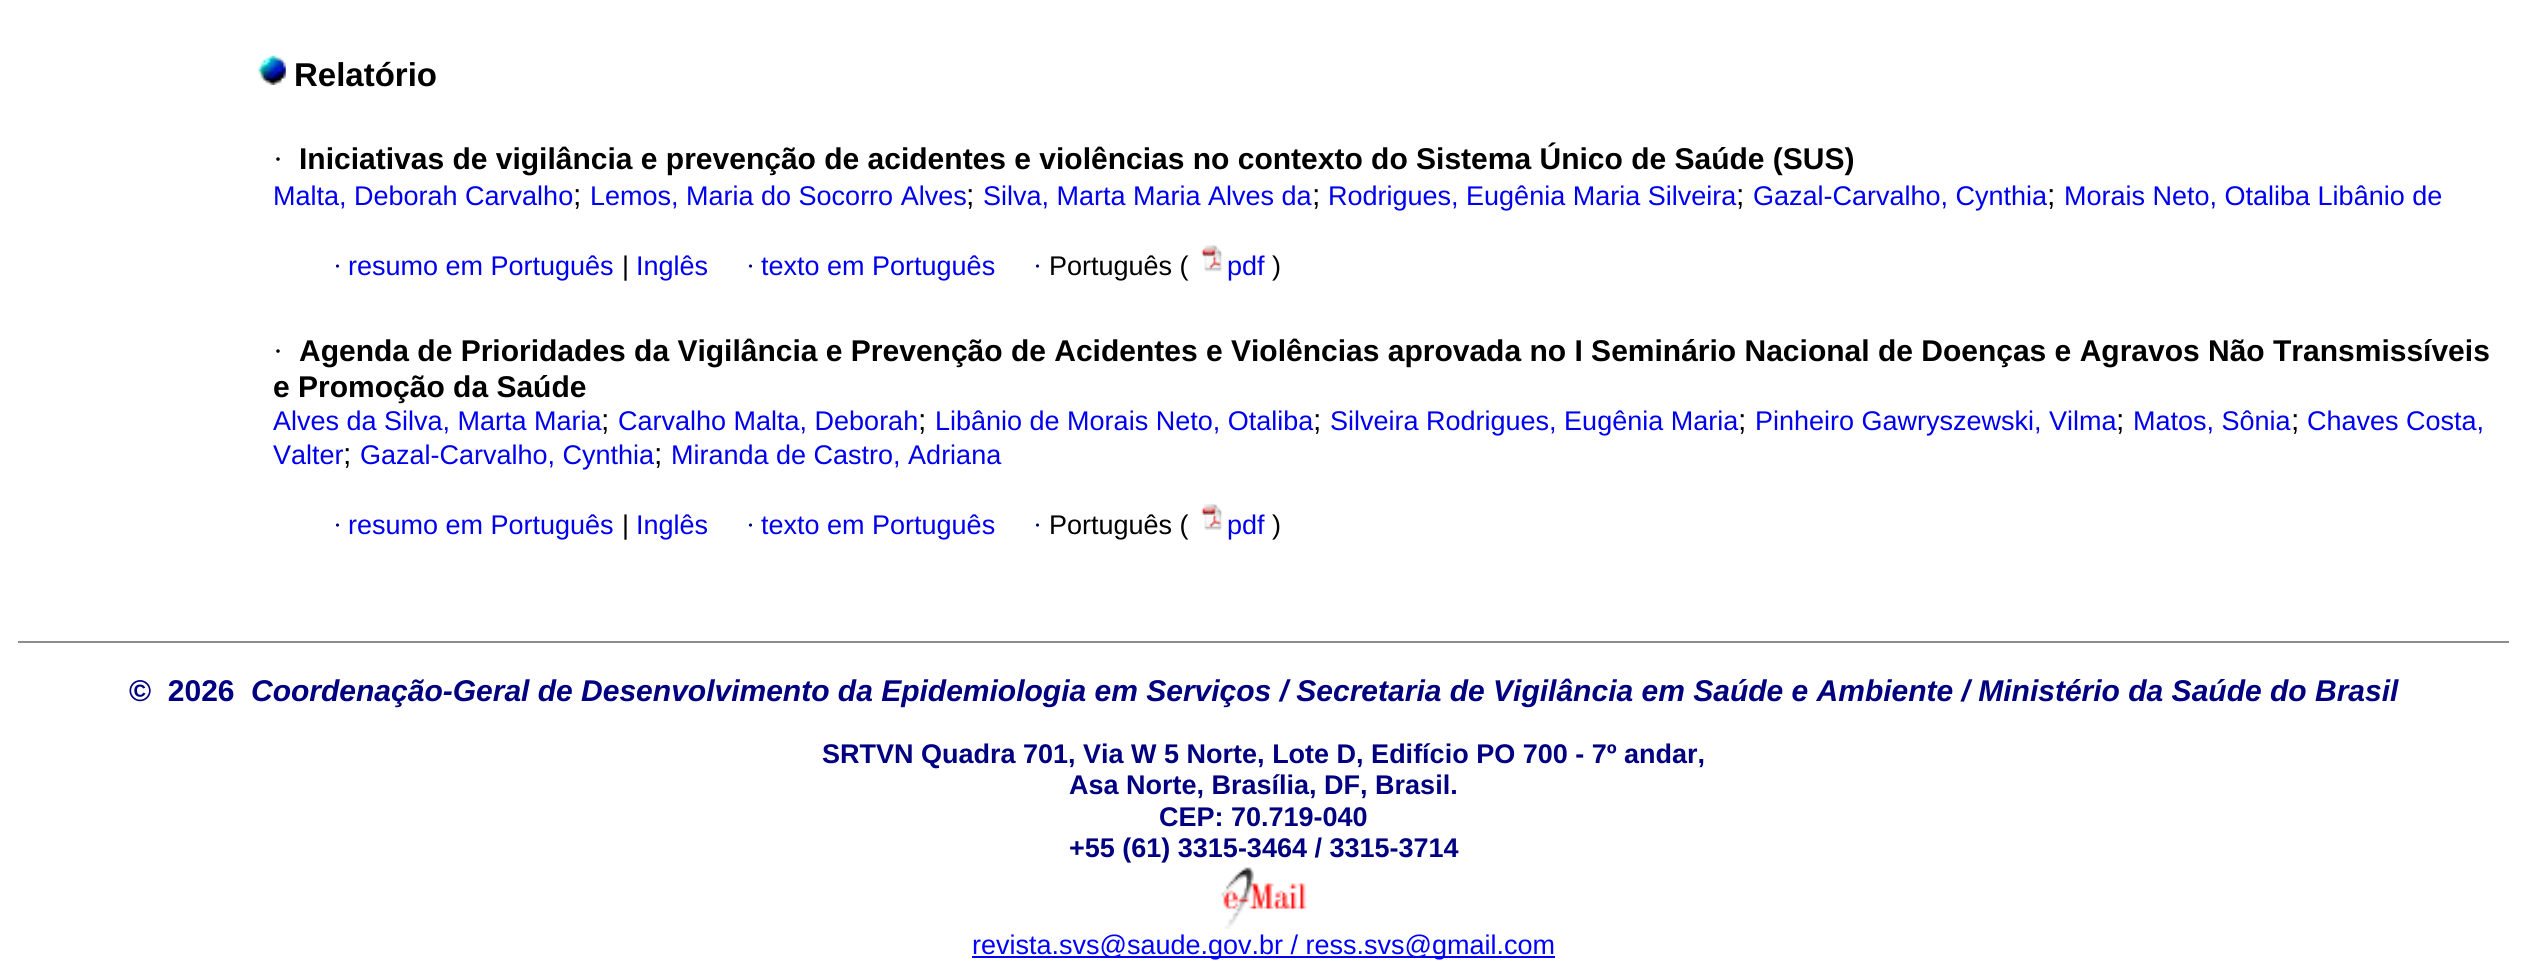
#include <cairo.h>
#include <math.h>
#include <stddef.h>

static cairo_t *c;
static void C(unsigned color){cairo_set_source_rgb(c, (color >> 16) / 255.0, (color >> 8 & 255) / 255.0, (color & 255) / 255.0);}
static void F(const char *family, double size, int italic, int bold){cairo_select_font_face(c, family, italic ? CAIRO_FONT_SLANT_ITALIC : CAIRO_FONT_SLANT_NORMAL,bold ? CAIRO_FONT_WEIGHT_BOLD : CAIRO_FONT_WEIGHT_NORMAL);cairo_set_font_size(c, size);}
static void T(double x, double y, const char *s){cairo_move_to(c, x, y);cairo_show_text(c, s);}
static void R(double x, double y, double w, double h){cairo_rectangle(c, x, y, w, h);cairo_fill(c);}
static void I(const char *path, double x, double y, double w, double h){cairo_surface_t *image = cairo_image_surface_create_from_png(path);cairo_save(c);cairo_set_source_surface(c, image, x, y);cairo_rectangle(c, x, y, w, h);cairo_fill(c);cairo_restore(c);cairo_surface_destroy(image);}
int main(void) {
cairo_surface_t *surface = cairo_image_surface_create(CAIRO_FORMAT_RGB24, 2526, 977);
c = cairo_create(surface);
cairo_font_options_t *options = cairo_font_options_create();
cairo_font_options_set_hint_metrics(options, CAIRO_HINT_METRICS_OFF);
cairo_font_options_set_hint_style(options, CAIRO_HINT_STYLE_NONE);
cairo_set_font_options(c, options);
cairo_set_miter_limit(c, 4);
C(0xffffff);
cairo_paint(c);
C(0x8d8d8d);
R(18,641,2491,2);
I("1.png",258,55,28,30);
F("Liberation Sans",33,0,1);
C(0x000000);
T(294,86,"Relatório");
F("Liberation Serif",30,0,0);
T(273,169,"·");
F("Liberation Sans",30,0,1);
T(299,169,"Iniciativas de vigilância e prevenção de acidentes e violências no contexto do Sistema Único de Saúde (SUS)");
F("Liberation Sans",27,0,0);
C(0x0000ee);
T(273,205,"Malta, Deborah Carvalho");
F("Liberation Sans",30,0,0);
C(0x000000);
T(573,205,";");
F("Liberation Sans",27,0,0);
C(0x0000ee);
T(590,205,"Lemos, Maria do Socorro Alves");
F("Liberation Sans",30,0,0);
C(0x000000);
T(966,205,";");
F("Liberation Sans",27,0,0);
C(0x0000ee);
T(983,205,"Silva, Marta Maria Alves da");
F("Liberation Sans",30,0,0);
C(0x000000);
T(1312,205,";");
F("Liberation Sans",27,0,0);
C(0x0000ee);
T(1328,205,"Rodrigues, Eugênia Maria Silveira");
F("Liberation Sans",30,0,0);
C(0x000000);
T(1736,205,";");
F("Liberation Sans",27,0,0);
C(0x0000ee);
T(1753,205,"Gazal-Carvalho, Cynthia");
F("Liberation Sans",30,0,0);
C(0x000000);
T(2047,205,";");
F("Liberation Sans",27,0,0);
C(0x0000ee);
T(2064,205,"Morais Neto, Otaliba Libânio de");
F("Liberation Serif",27,0,0);
C(0x000080);
T(333,275,"·");
F("Liberation Sans",27,0,0);
C(0x0000ee);
T(348,275,"resumo em Português");
C(0x000000);
T(622,275,"|");
C(0x0000ee);
T(636,275,"Inglês");
F("Liberation Serif",27,0,0);
C(0x000080);
T(746,275,"·");
F("Liberation Sans",27,0,0);
C(0x0000ee);
T(761,275,"texto em Português");
F("Liberation Serif",27,0,0);
C(0x000080);
T(1033,275,"·");
F("Liberation Sans",27,0,0);
C(0x000000);
T(1049,275,"Português (");
I("2.png",1201,245,22,27);
C(0x0000ee);
T(1227,275,"pdf");
C(0x000000);
T(1272,275,")");
F("Liberation Serif",30,0,0);
T(273,361,"·");
F("Liberation Sans",30,0,1);
T(299,361,"Agenda de Prioridades da Vigilância e Prevenção de Acidentes e Violências aprovada no I Seminário Nacional de Doenças e Agravos Não Transmissíveis");
T(273,397,"e Promoção da Saúde");
F("Liberation Sans",27,0,0);
C(0x0000ee);
T(273,430,"Alves da Silva, Marta Maria");
F("Liberation Sans",30,0,0);
C(0x000000);
T(601,430,";");
F("Liberation Sans",27,0,0);
C(0x0000ee);
T(618,430,"Carvalho Malta, Deborah");
F("Liberation Sans",30,0,0);
C(0x000000);
T(918,430,";");
F("Liberation Sans",27,0,0);
C(0x0000ee);
T(935,430,"Libânio de Morais Neto, Otaliba");
F("Liberation Sans",30,0,0);
C(0x000000);
T(1313,430,";");
F("Liberation Sans",27,0,0);
C(0x0000ee);
T(1330,430,"Silveira Rodrigues, Eugênia Maria");
F("Liberation Sans",30,0,0);
C(0x000000);
T(1738,430,";");
F("Liberation Sans",27,0,0);
C(0x0000ee);
T(1755,430,"Pinheiro Gawryszewski, Vilma");
F("Liberation Sans",30,0,0);
C(0x000000);
T(2116,430,";");
F("Liberation Sans",27,0,0);
C(0x0000ee);
T(2133,430,"Matos, Sônia");
F("Liberation Sans",30,0,0);
C(0x000000);
T(2291,430,";");
F("Liberation Sans",27,0,0);
C(0x0000ee);
T(2307,430,"Chaves Costa,");
T(273,464,"Valter");
F("Liberation Sans",30,0,0);
C(0x000000);
T(343,464,";");
F("Liberation Sans",27,0,0);
C(0x0000ee);
T(360,464,"Gazal-Carvalho, Cynthia");
F("Liberation Sans",30,0,0);
C(0x000000);
T(654,464,";");
F("Liberation Sans",27,0,0);
C(0x0000ee);
T(671,464,"Miranda de Castro, Adriana");
F("Liberation Serif",27,0,0);
C(0x000080);
T(333,534,"·");
F("Liberation Sans",27,0,0);
C(0x0000ee);
T(348,534,"resumo em Português");
C(0x000000);
T(622,534,"|");
C(0x0000ee);
T(636,534,"Inglês");
F("Liberation Serif",27,0,0);
C(0x000080);
T(746,534,"·");
F("Liberation Sans",27,0,0);
C(0x0000ee);
T(761,534,"texto em Português");
F("Liberation Serif",27,0,0);
C(0x000080);
T(1033,534,"·");
F("Liberation Sans",27,0,0);
C(0x000000);
T(1049,534,"Português (");
I("3.png",1201,504,22,26);
C(0x0000ee);
T(1227,534,"pdf");
C(0x000000);
T(1272,534,")");
F("Liberation Sans",30,0,1);
C(0x000080);
T(129,701,"©  2026");
F("Liberation Sans",30,1,1);
T(251,701,"Coordenação-Geral de Desenvolvimento da Epidemiologia em Serviços / Secretaria de Vigilância em Saúde e Ambiente / Ministério da Saúde do Brasil");
F("Liberation Sans",27,0,1);
T(822,763,"SRTVN Quadra 701, Via W 5 Norte, Lote D, Edifício PO 700 - 7º andar,");
T(1069,794,"Asa Norte, Brasília, DF, Brasil.");
T(1159,826,"CEP: 70.719-040");
T(1069,857,"+55 (61) 3315-3464 / 3315-3714");
I("4.png",1221,867,87,62);
C(0x0000ff);
R(972,956,583,2);
F("Liberation Sans",27,0,0);
T(972,954,"revista.svs@saude.gov.br / ress.svs@gmail.com");
cairo_surface_write_to_png(surface, "o.png");
cairo_font_options_destroy(options);
cairo_destroy(c);
cairo_surface_destroy(surface);
return 0;
}
